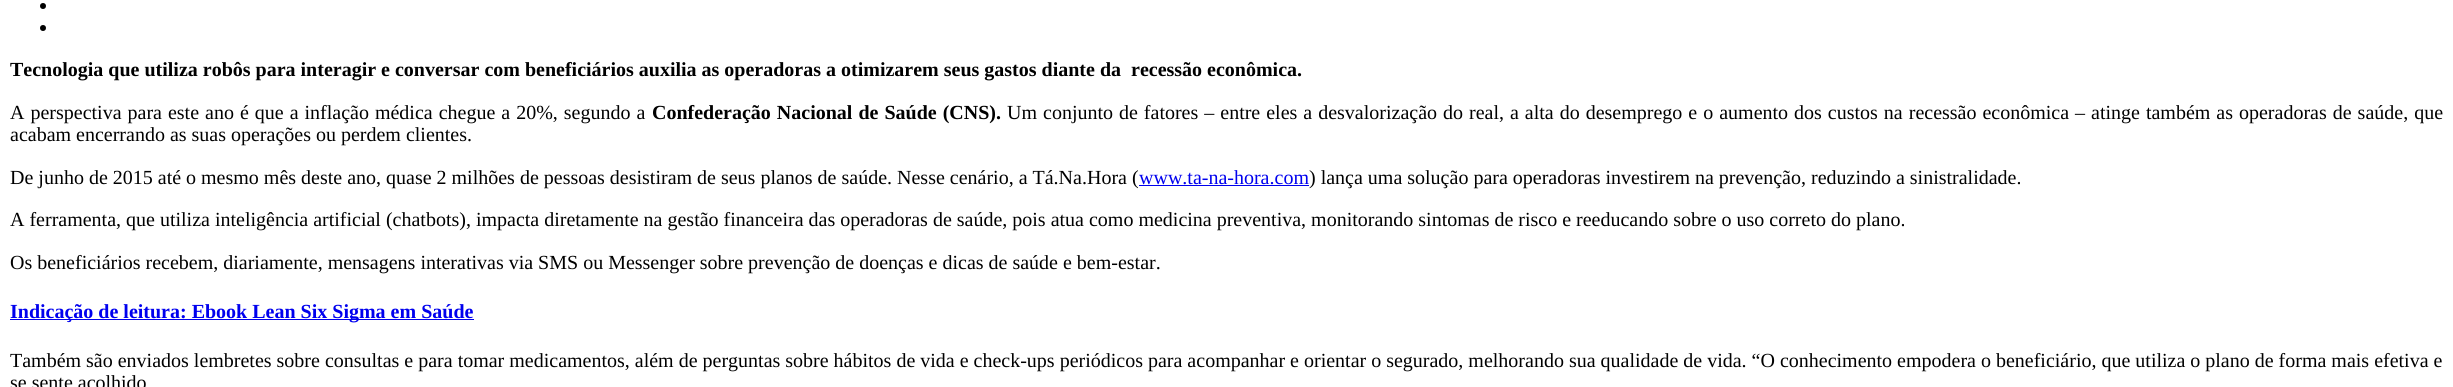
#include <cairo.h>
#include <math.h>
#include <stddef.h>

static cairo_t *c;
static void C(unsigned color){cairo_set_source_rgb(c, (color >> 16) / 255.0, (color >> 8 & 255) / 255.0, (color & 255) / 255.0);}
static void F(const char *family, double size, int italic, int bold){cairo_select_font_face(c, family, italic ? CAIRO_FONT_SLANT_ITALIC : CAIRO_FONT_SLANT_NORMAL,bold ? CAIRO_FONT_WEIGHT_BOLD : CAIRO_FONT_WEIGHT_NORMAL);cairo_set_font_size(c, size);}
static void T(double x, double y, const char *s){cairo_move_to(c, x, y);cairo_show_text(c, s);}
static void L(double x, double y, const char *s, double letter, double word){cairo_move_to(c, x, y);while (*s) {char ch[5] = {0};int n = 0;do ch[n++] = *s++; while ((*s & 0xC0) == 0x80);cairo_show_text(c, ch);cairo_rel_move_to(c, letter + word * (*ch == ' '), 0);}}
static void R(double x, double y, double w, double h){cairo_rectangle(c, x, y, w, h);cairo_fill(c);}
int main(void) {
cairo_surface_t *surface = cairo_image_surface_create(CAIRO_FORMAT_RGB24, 2453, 387);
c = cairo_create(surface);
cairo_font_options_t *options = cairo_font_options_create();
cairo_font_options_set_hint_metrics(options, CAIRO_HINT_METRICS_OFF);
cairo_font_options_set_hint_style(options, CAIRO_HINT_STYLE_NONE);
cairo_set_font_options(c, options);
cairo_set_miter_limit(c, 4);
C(0xffffff);
cairo_paint(c);
C(0x000000);
cairo_arc(c,43,6,3,0,2 * M_PI);
cairo_fill(c);
cairo_arc(c,43,28,3,0,2 * M_PI);
cairo_fill(c);
F("Liberation Serif",20,0,1);
T(10,76,"Tecnologia que utiliza robôs para interagir e conversar com beneficiários auxilia as operadoras a otimizarem seus gastos diante da  recessão econômica.");
F("Liberation Serif",20,0,0);
L(10,119,"A perspectiva para este ano é que a inflação médica chegue a 20%, segundo a",0,1);
F("Liberation Serif",20,0,1);
L(652,119,"Confederação Nacional de Saúde (CNS).",0,1);
F("Liberation Serif",20,0,0);
L(1007,119,"Um conjunto de fatores – entre eles a desvalorização do real, a alta do desemprego e o aumento dos custos na recessão econômica – atinge também as operadoras de saúde, que",0,1);
T(10,141,"acabam encerrando as suas operações ou perdem clientes.");
T(10,184,"De junho de 2015 até o mesmo mês deste ano, quase 2 milhões de pessoas desistiram de seus planos de saúde. Nesse cenário, a Tá.Na.Hora (");
C(0x0000ee);
T(1139,184,"www.ta-na-hora.com");
R(1139,185,170,1);
C(0x000000);
T(1309,184,") lança uma solução para operadoras investirem na prevenção, reduzindo a sinistralidade.");
T(10,226,"A ferramenta, que utiliza inteligência artificial (chatbots), impacta diretamente na gestão financeira das operadoras de saúde, pois atua como medicina preventiva, monitorando sintomas de risco e reeducando sobre o uso correto do plano.");
T(10,269,"Os beneficiários recebem, diariamente, mensagens interativas via SMS ou Messenger sobre prevenção de doenças e dicas de saúde e bem-estar.");
C(0x0000ee);
R(10,319,464,1);
F("Liberation Serif",20,0,1);
T(10,318,"Indicação de leitura: Ebook Lean Six Sigma em Saúde");
F("Liberation Serif",20,0,0);
C(0x000000);
T(10,367,"Também são enviados lembretes sobre consultas e para tomar medicamentos, além de perguntas sobre hábitos de vida e check-ups periódicos para acompanhar e orientar o segurado, melhorando sua qualidade de vida. “O conhecimento empodera o beneficiário, que utiliza o plano de forma mais efetiva e");
T(10,389,"se sente acolhido");
cairo_surface_write_to_png(surface, "o.png");
cairo_font_options_destroy(options);
cairo_destroy(c);
cairo_surface_destroy(surface);
return 0;
}
